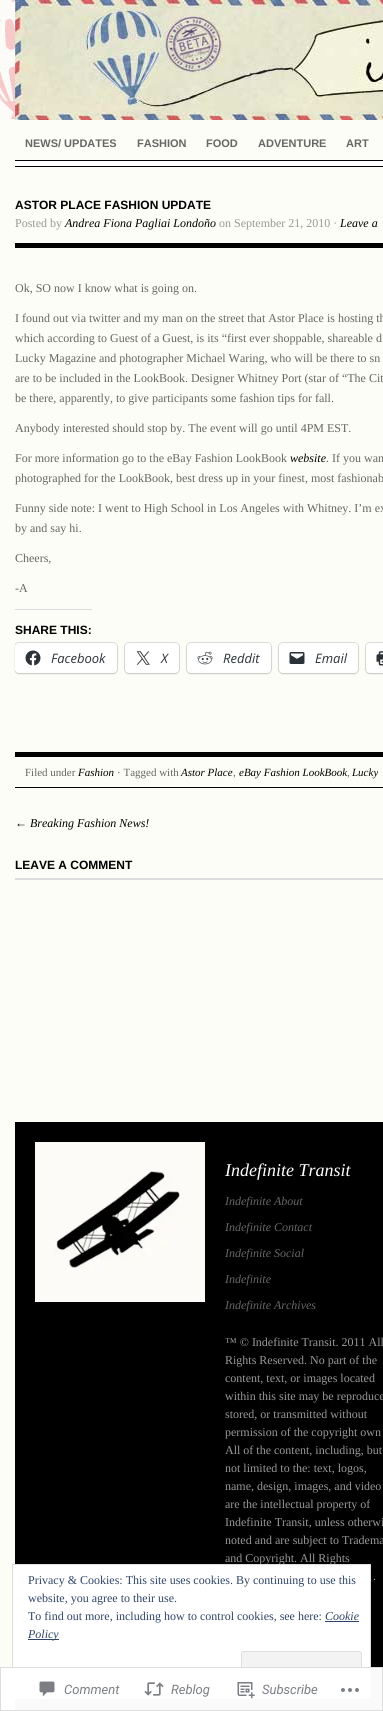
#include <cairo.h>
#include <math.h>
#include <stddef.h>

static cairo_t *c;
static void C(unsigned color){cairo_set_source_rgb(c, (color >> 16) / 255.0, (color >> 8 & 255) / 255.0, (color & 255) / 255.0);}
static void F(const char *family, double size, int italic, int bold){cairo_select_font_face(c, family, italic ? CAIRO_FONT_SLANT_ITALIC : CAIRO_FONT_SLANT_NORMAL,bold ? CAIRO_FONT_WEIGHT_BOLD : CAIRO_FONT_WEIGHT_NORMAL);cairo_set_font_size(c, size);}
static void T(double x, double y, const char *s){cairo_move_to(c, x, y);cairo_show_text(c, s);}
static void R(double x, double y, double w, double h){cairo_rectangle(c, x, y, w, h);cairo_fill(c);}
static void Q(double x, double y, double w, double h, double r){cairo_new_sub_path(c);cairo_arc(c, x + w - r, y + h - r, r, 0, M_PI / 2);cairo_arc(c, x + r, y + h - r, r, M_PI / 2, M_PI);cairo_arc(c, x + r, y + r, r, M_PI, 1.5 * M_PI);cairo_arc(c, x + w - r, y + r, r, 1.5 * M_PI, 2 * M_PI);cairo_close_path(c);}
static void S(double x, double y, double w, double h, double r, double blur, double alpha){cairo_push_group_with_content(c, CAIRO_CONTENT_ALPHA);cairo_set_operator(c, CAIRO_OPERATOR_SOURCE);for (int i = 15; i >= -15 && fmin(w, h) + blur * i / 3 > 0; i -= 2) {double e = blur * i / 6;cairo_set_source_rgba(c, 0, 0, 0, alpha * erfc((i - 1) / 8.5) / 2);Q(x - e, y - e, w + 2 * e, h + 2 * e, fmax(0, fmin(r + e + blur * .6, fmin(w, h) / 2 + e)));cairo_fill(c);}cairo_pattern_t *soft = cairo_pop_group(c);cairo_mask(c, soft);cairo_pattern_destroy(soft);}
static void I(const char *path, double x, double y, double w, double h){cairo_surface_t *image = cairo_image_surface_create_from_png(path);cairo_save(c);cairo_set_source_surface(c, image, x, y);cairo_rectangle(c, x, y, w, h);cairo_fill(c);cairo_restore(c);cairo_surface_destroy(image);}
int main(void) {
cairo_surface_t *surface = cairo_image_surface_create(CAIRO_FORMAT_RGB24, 383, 1711);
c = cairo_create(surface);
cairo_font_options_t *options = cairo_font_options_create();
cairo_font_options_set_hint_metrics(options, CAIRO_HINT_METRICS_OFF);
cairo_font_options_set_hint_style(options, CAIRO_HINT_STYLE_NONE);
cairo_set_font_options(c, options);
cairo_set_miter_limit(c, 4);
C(0xfcfdf6);
cairo_paint(c);
I("1.png",0,0,15,119);
I("2.png",15,0,368,120);
C(0x000000);
R(15,160,368,1);
C(0xffffff);
R(15,161,368,5);
F("Liberation Sans",11,0,1);
C(0x666666);
T(25,147,"NEWS/ UPDATES");
T(137,147,"FASHION");
T(206,147,"FOOD");
T(258,147,"ADVENTURE");
T(346,147,"ART");
C(0x000000);
R(15,166,368,1);
R(15,243,368,5);
F("Liberation Sans",12,0,1);
T(15,209,"ASTOR PLACE FASHION UPDATE");
F("Liberation Serif",12,0,0);
C(0x999999);
T(15,227,"Posted by");
F("Liberation Serif",12,1,0);
C(0x000000);
T(65,227,"Andrea Fiona Pagliai Londoño");
F("Liberation Serif",12,0,0);
C(0x999999);
T(219,227,"on September 21, 2010 ·");
F("Liberation Serif",12,1,0);
C(0x000000);
T(340,227,"Leave a");
F("Liberation Serif",12,0,0);
C(0x666666);
T(15,292,"Ok, SO now I know what is going on.");
T(15,322,"I found out via twitter and my man on the street that Astor Place is hosting th");
T(15,342,"which according to Guest of a Guest, is its “first ever shoppable, shareable d");
T(15,362,"Lucky Magazine and photographer Michael Waring, who will be there to sn");
T(15,382,"are to be included in the LookBook. Designer Whitney Port (star of “The Cit");
T(15,402,"be there, apparently, to give participants some fashion tips for fall.");
T(15,432,"Anybody interested should stop by. The event will go until 4PM EST.");
T(15,462,"For more information go to the eBay Fashion LookBook");
F("Liberation Serif",12,1,0);
C(0x000000);
T(290,462,"website");
F("Liberation Serif",12,0,0);
C(0x666666);
T(326,462,". If you wan");
T(15,482,"photographed for the LookBook, best dress up in your finest, most fashionab");
T(15,512,"Funny side note: I went to High School in Los Angeles with Whitney. I’m ex");
T(15,532,"by and say hi.");
T(15,562,"Cheers,");
T(15,592,"-A");
C(0xdcdcde);
R(15,609,77,1);
F("Liberation Sans",12,0,1);
C(0x000000);
T(15,634,"SHARE THIS:");
cairo_save(c);
cairo_rectangle(c,15,197,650,683);
cairo_clip(c);
Q(14.5,642.5,103,31,4.5);
C(0xdedfd8);
cairo_set_line_width(c,1);
cairo_stroke(c);
cairo_restore(c);
C(0x000000);
S(15,644,102,30,4,1,.12);
C(0xffffff);
Q(15,643,102,30,4);
cairo_fill(c);
I("3.png",25,650,16,16);
F("Open Sans",13,1,0);
C(0x2c3338);
T(51,663,"Facebook");
Q(124.5,642.5,55,31,4.5);
C(0xdedfd8);
cairo_set_line_width(c,1);
cairo_stroke(c);
C(0x000000);
S(125,644,54,30,4,1,.12);
C(0xffffff);
Q(125,643,54,30,4);
cairo_fill(c);
I("4.png",136,651,14,14);
C(0x2c3338);
T(161,663,"X");
Q(186.5,642.5,85,31,4.5);
C(0xdedfd8);
cairo_stroke(c);
C(0x000000);
S(187,644,84,30,4,1,.12);
C(0xffffff);
Q(187,643,84,30,4);
cairo_fill(c);
I("5.png",197,651,16,14);
C(0x2c3338);
T(223,663,"Reddit");
Q(278.5,642.5,80,31,4.5);
C(0xdedfd8);
cairo_stroke(c);
C(0x000000);
S(279,644,79,30,4,1,.12);
C(0xffffff);
Q(279,643,79,30,4);
cairo_fill(c);
I("6.png",289,652,16,12);
C(0x2c3338);
T(315,663,"Email");
Q(365.5,642.5,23,31,4.5);
C(0xdedfd8);
cairo_stroke(c);
C(0x000000);
S(366,644,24,30,4,1,.12);
C(0xffffff);
Q(366,643,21,30,4);
cairo_fill(c);
I("7.png",376,651,7,15);
C(0x000000);
R(15,752,368,5);
R(15,787,368,1);
F("Liberation Serif",11,0,0);
C(0x666666);
T(25,776,"Filed under");
F("Liberation Serif",11,1,0);
C(0x000000);
T(78,776,"Fashion");
F("Liberation Serif",11,0,0);
C(0x666666);
T(117,776,"· Tagged with");
F("Liberation Serif",11,1,0);
C(0x000000);
T(181,776,"Astor Place");
F("Liberation Serif",11,0,0);
C(0x666666);
T(233,776,",");
F("Liberation Serif",11,1,0);
C(0x000000);
T(239,776,"eBay Fashion LookBook");
F("Liberation Serif",11,0,0);
C(0x666666);
T(347,776,",");
F("Liberation Serif",11,1,0);
C(0x000000);
T(352,776,"Lucky");
F("Liberation Serif",12,1,0);
T(15,827,"← Breaking Fashion News!");
F("Liberation Sans",12,0,1);
T(15,869,"LEAVE A COMMENT");
C(0xdcdcde);
R(15,878,368,2);
C(0x000000);
R(15,1122,368,589);
I("8.png",35,1142,170,160);
F("Liberation Serif",18,1,0);
C(0xffffff);
T(225,1176,"Indefinite Transit");
F("Liberation Serif",12,1,0);
C(0x666666);
T(225,1205,"Indefinite About");
T(225,1231,"Indefinite Contact");
T(225,1257,"Indefinite Social");
T(225,1283,"Indefinite");
T(225,1309,"Indefinite Archives");
F("Liberation Serif",12,0,0);
C(0x999999);
T(225,1346,"™ © Indefinite Transit. 2011 All");
T(225,1364,"Rights Reserved. No part of the");
T(225,1382,"content, text, or images located");
T(225,1400,"within this site may be reproduce");
T(225,1418,"stored, or transmitted without");
T(225,1436,"permission of the copyright own");
T(225,1454,"All of the content, including, but");
T(225,1472,"not limited to the: text, logos,");
T(225,1490,"name, design, images, and video");
T(225,1508,"are the intellectual property of");
T(225,1526,"Indefinite Transit, unless otherwi");
T(225,1544,"noted and are subject to Tradema");
T(225,1562,"and Copyright. All Rights");
T(373,1580,".");
C(0xffffff);
cairo_rectangle(c,12.5,1564.5,358,134);
cairo_fill_preserve(c);
C(0xdedede);
cairo_stroke(c);
C(0x2e4467);
T(28,1584,"Privacy & Cookies: This site uses cookies. By continuing to use this");
T(28,1602,"website, you agree to their use.");
T(28,1620,"To find out more, including how to control cookies, see here:");
F("Liberation Serif",12,1,0);
T(325,1620,"Cookie");
R(325,1621,34,1);
R(28,1639,31,1);
T(28,1638,"Policy");
C(0xf3f3f3);
Q(241.5,1651.5,120,38,2.5);
cairo_fill_preserve(c);
C(0xdedede);
cairo_stroke(c);
cairo_set_source_rgba(c,1,1,1,0.98);
R(0,1667,383,44);
cairo_rectangle(c,.5,1667.5,382,43);
cairo_set_source_rgba(c,0.863,0.863,0.871,0.98);
cairo_stroke(c);
I("9.png",39,1681,16,16);
F("Roboto",13,1,0);
C(0x7b7f85);
T(64,1694,"Comment");
I("10.png",144,1682,20,14);
T(171,1694,"Reblog");
I("11.png",237,1682,18,17);
T(262,1694,"Subscribe");
I("12.png",341,1688,18,4);
cairo_surface_write_to_png(surface, "o.png");
cairo_font_options_destroy(options);
cairo_destroy(c);
cairo_surface_destroy(surface);
return 0;
}
